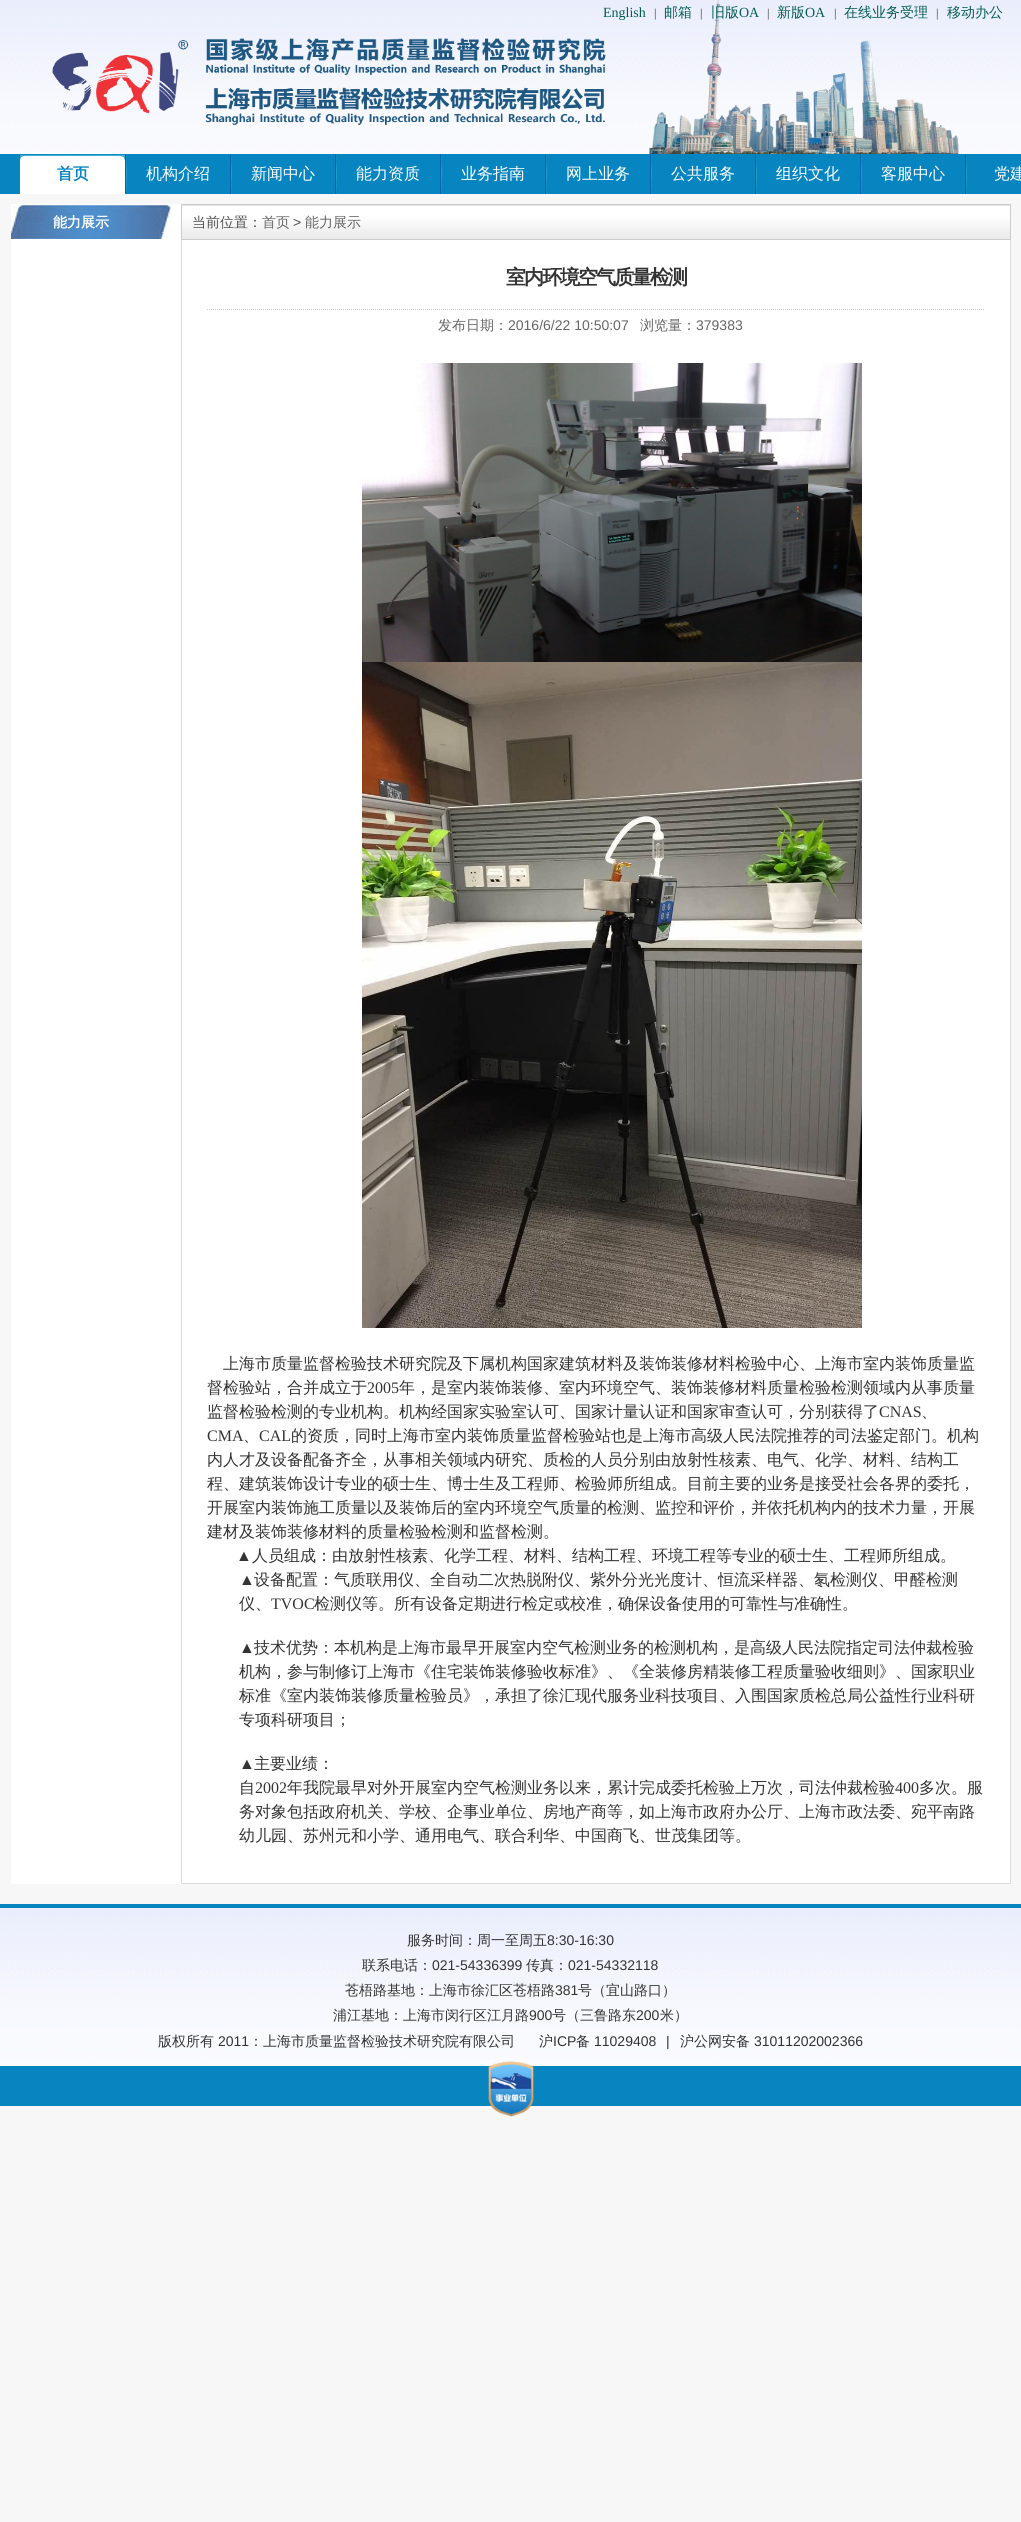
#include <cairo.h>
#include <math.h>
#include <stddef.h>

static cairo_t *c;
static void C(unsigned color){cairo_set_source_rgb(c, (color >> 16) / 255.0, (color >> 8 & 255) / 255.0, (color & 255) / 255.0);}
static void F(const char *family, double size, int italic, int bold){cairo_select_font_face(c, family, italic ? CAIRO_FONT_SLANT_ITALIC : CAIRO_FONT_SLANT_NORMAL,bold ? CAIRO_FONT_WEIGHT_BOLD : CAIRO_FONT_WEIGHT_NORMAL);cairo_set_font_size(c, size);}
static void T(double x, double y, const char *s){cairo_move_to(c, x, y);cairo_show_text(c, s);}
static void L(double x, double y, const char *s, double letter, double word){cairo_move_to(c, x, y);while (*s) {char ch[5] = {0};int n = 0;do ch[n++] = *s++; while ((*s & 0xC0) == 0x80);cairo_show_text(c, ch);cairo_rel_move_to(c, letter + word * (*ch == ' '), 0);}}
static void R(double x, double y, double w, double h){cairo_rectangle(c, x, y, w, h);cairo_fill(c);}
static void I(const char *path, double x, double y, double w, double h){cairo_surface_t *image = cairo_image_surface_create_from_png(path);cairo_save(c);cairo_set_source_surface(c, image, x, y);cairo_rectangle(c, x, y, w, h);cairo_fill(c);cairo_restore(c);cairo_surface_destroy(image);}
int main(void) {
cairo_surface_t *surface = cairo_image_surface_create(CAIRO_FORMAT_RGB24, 1021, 2522);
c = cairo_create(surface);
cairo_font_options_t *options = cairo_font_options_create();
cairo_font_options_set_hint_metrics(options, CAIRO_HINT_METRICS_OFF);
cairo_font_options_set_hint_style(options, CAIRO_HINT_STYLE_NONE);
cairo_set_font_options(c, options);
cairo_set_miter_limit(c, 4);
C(0xf7f7f7);
cairo_paint(c);
I("1.png",0,0,1021,154);
I("2.png",52,0,907,154);
F("Liberation Serif",14,0,0);
C(0x045c55);
T(603,17,"English");
F("Liberation Serif",12,0,0);
C(0x333333);
T(654,17,"|");
F("WenQuanYi Zen Hei Medium",14,0,0);
C(0x045c55);
T(664,17,"邮箱");
F("Liberation Serif",12,0,0);
C(0x333333);
T(700,17,"|");
F("WenQuanYi Zen Hei Medium",14,0,0);
C(0x045c55);
T(711,17,"旧版");
F("Liberation Serif",14,0,0);
T(739,17,"OA");
F("Liberation Serif",12,0,0);
C(0x333333);
T(767,17,"|");
F("WenQuanYi Zen Hei Medium",14,0,0);
C(0x045c55);
T(777,17,"新版");
F("Liberation Serif",14,0,0);
T(805,17,"OA");
F("Liberation Serif",12,0,0);
C(0x333333);
T(834,17,"|");
F("WenQuanYi Zen Hei Medium",14,0,0);
C(0x045c55);
T(844,17,"在线业务受理");
F("Liberation Serif",12,0,0);
C(0x333333);
T(936,17,"|");
F("WenQuanYi Zen Hei Medium",14,0,0);
C(0x045c55);
T(947,17,"移动办公");
C(0x0785c0);
R(0,154,1021,40);
I("3.png",20,154,105,40);
F("WenQuanYi Zen Hei",16,0,1);
T(57,179,"首页");
I("4.png",125,154,2,40);
F("WenQuanYi Zen Hei Medium",16,0,0);
C(0xffffff);
T(146,179,"机构介绍");
I("4.png",230,154,2,40);
T(251,179,"新闻中心");
I("4.png",335,154,2,40);
T(356,179,"能力资质");
I("4.png",440,154,2,40);
T(461,179,"业务指南");
I("4.png",545,154,2,40);
T(566,179,"网上业务");
I("4.png",650,154,2,40);
T(671,179,"公共服务");
I("4.png",755,154,2,40);
T(776,179,"组织文化");
I("4.png",860,154,2,40);
T(881,179,"客服中心");
I("4.png",965,154,2,40);
T(994,179,"党建");
R(11,204,999,1680);
I("5.png",11,204,160,35);
F("WenQuanYi Zen Hei",14,0,1);
T(53,227,"能力展示");
I("6.png",182,205,828,34);
cairo_rectangle(c,181.5,204.5,829,35);
C(0xcccccc);
cairo_set_line_width(c,1);
cairo_stroke(c);
F("WenQuanYi Zen Hei Medium",14,0,0);
C(0x505050);
T(192,227,"当前位置：");
C(0x666666);
T(262,227,"首页");
F("Liberation Sans",14,0,0);
C(0x505050);
T(293,227,">");
F("WenQuanYi Zen Hei Medium",14,0,0);
C(0x666666);
T(305,227,"能力展示");
C(0xdcdcdc);
R(1010,240,1,1644);
R(181,1883,830,1);
R(181,240,1,1644);
cairo_new_path(c);
cairo_move_to(c,207,309.5);
cairo_line_to(c,985,309.5);
C(0xcccccc);
cairo_set_dash(c,(double[]){1,1},2,0);
cairo_stroke(c);
F("WenQuanYi Zen Hei",20,0,1);
C(0x333333);
L(506,284,"室内环境空气质量检测",-2,0);
F("WenQuanYi Zen Hei Medium",14,0,0);
C(0x666666);
T(438,330,"发布日期：");
F("Liberation Sans",14,0,0);
T(508,330,"2016/6/22 10:50:07");
F("WenQuanYi Zen Hei Medium",14,0,0);
T(640,330,"浏览量：");
F("Liberation Sans",14,0,0);
T(696,330,"379383");
I("7.png",362,363,500,299);
I("8.png",362,662,500,666);
F("WenQuanYi Zen Hei Medium",16,0,0);
C(0x333333);
T(223,1369,"上海市质量监督检验技术研究院及下属机构国家建筑材料及装饰装修材料检验中心、上海市室内装饰质量监");
T(207,1393,"督检验站，合并成立于");
F("Liberation Serif",16,0,0);
T(367,1393,"2005");
F("WenQuanYi Zen Hei Medium",16,0,0);
T(399,1393,"年，是室内装饰装修、室内环境空气、装饰装修材料质量检验检测领域内从事质量");
T(207,1417,"监督检验检测的专业机构。机构经国家实验室认可、国家计量认证和国家审查认可，分别获得了");
F("Liberation Serif",16,0,0);
T(879,1417,"CNAS");
F("WenQuanYi Zen Hei Medium",16,0,0);
T(921,1417,"、");
F("Liberation Serif",16,0,0);
T(207,1441,"CMA");
F("WenQuanYi Zen Hei Medium",16,0,0);
T(243,1441,"、");
F("Liberation Serif",16,0,0);
T(259,1441,"CAL");
F("WenQuanYi Zen Hei Medium",16,0,0);
T(291,1441,"的资质，同时上海市室内装饰质量监督检验站也是上海市高级人民法院推荐的司法鉴定部门。机构");
T(207,1465,"内人才及设备配备齐全，从事相关领域内研究、质检的人员分别由放射性核素、电气、化学、材料、结构工");
T(207,1489,"程、建筑装饰设计专业的硕士生、博士生及工程师、检验师所组成。目前主要的业务是接受社会各界的委托，");
T(207,1513,"开展室内装饰施工质量以及装饰后的室内环境空气质量的检测、监控和评价，并依托机构内的技术力量，开展");
T(207,1537,"建材及装饰装修材料的质量检验检测和监督检测。");
F("Liberation Serif",16,0,0);
T(236,1561,"▲");
F("WenQuanYi Zen Hei Medium",16,0,0);
T(252,1561,"人员组成：由放射性核素、化学工程、材料、结构工程、环境工程等专业的硕士生、工程师所组成。");
F("Liberation Serif",16,0,0);
T(239,1585,"▲");
F("WenQuanYi Zen Hei Medium",16,0,0);
T(254,1585,"设备配置：气质联用仪、全自动二次热脱附仪、紫外分光光度计、恒流采样器、氡检测仪、甲醛检测");
T(239,1609,"仪、");
F("Liberation Serif",16,0,0);
T(271,1609,"TVOC");
F("WenQuanYi Zen Hei Medium",16,0,0);
T(314,1609,"检测仪等。所有设备定期进行检定或校准，确保设备使用的可靠性与准确性。");
F("Liberation Serif",16,0,0);
T(239,1653,"▲");
F("WenQuanYi Zen Hei Medium",16,0,0);
T(254,1653,"技术优势：本机构是上海市最早开展室内空气检测业务的检测机构，是高级人民法院指定司法仲裁检验");
T(239,1677,"机构，参与制修订上海市《住宅装饰装修验收标准》、《全装修房精装修工程质量验收细则》、国家职业");
T(239,1701,"标准《室内装饰装修质量检验员》，承担了徐汇现代服务业科技项目、入围国家质检总局公益性行业科研");
T(239,1725,"专项科研项目；");
F("Liberation Serif",16,0,0);
T(239,1769,"▲");
F("WenQuanYi Zen Hei Medium",16,0,0);
T(254,1769,"主要业绩：");
T(239,1793,"自");
F("Liberation Serif",16,0,0);
T(255,1793,"2002");
F("WenQuanYi Zen Hei Medium",16,0,0);
T(287,1793,"年我院最早对外开展室内空气检测业务以来，累计完成委托检验上万次，司法仲裁检验");
F("Liberation Serif",16,0,0);
T(895,1793,"400");
F("WenQuanYi Zen Hei Medium",16,0,0);
T(919,1793,"多次。服");
T(239,1817,"务对象包括政府机关、学校、企事业单位、房地产商等，如上海市政府办公厅、上海市政法委、宛平南路");
T(239,1841,"幼儿园、苏州元和小学、通用电气、联合利华、中国商飞、世茂集团等。");
I("9.png",0,1908,1021,198);
C(0x0785c0);
R(0,1904,1021,4);
F("WenQuanYi Zen Hei Medium",14,0,0);
C(0x333333);
T(407,1945,"服务时间：周一至周五");
F("Liberation Sans",14,0,0);
T(547,1945,"8:30-16:30");
F("WenQuanYi Zen Hei Medium",14,0,0);
T(362,1970,"联系电话：");
F("Liberation Sans",14,0,0);
T(432,1970,"021-54336399");
F("WenQuanYi Zen Hei Medium",14,0,0);
T(526,1970,"传真：");
F("Liberation Sans",14,0,0);
T(568,1970,"021-54332118");
F("WenQuanYi Zen Hei Medium",14,0,0);
T(345,1995,"苍梧路基地：上海市徐汇区苍梧路");
F("Liberation Sans",14,0,0);
T(555,1995,"381");
F("WenQuanYi Zen Hei Medium",14,0,0);
T(578,1995,"号（宜山路口）");
T(333,2020,"浦江基地：上海市闵行区江月路");
F("Liberation Sans",14,0,0);
T(529,2020,"900");
F("WenQuanYi Zen Hei Medium",14,0,0);
T(552,2020,"号（三鲁路东");
F("Liberation Sans",14,0,0);
T(636,2020,"200");
F("WenQuanYi Zen Hei Medium",14,0,0);
T(660,2020,"米）");
T(158,2046,"版权所有");
F("Liberation Sans",14,0,0);
T(218,2046,"2011");
F("WenQuanYi Zen Hei Medium",14,0,0);
T(249,2046,"：上海市质量监督检验技术研究院有限公司");
T(539,2046,"沪");
F("Liberation Sans",14,0,0);
T(553,2046,"ICP");
F("WenQuanYi Zen Hei Medium",14,0,0);
T(576,2046,"备");
F("Liberation Sans",14,0,0);
T(594,2046,"11029408");
T(666,2046,"|");
F("WenQuanYi Zen Hei Medium",14,0,0);
T(680,2046,"沪公网安备");
F("Liberation Sans",14,0,0);
T(754,2046,"31011202002366");
I("10.png",488,2061,46,56);
cairo_surface_write_to_png(surface, "o.png");
cairo_font_options_destroy(options);
cairo_destroy(c);
cairo_surface_destroy(surface);
return 0;
}
